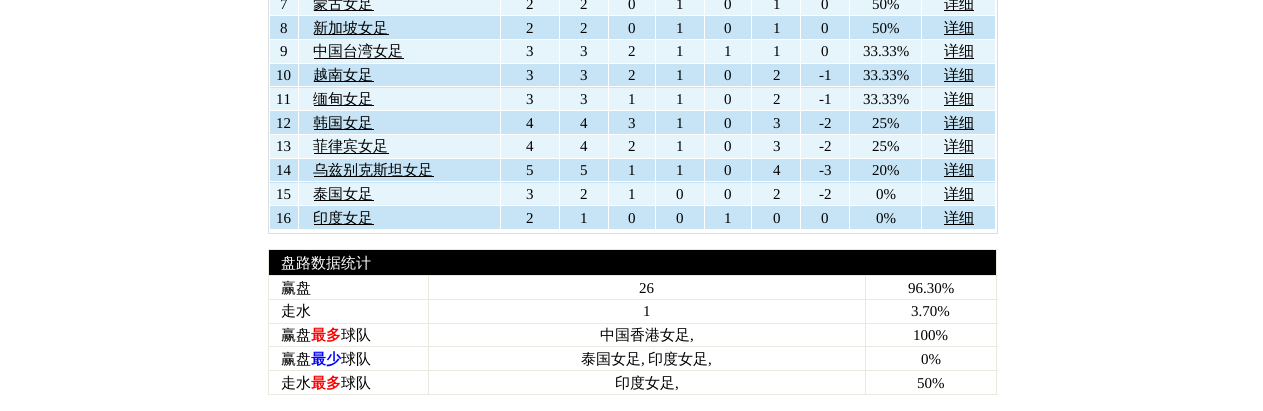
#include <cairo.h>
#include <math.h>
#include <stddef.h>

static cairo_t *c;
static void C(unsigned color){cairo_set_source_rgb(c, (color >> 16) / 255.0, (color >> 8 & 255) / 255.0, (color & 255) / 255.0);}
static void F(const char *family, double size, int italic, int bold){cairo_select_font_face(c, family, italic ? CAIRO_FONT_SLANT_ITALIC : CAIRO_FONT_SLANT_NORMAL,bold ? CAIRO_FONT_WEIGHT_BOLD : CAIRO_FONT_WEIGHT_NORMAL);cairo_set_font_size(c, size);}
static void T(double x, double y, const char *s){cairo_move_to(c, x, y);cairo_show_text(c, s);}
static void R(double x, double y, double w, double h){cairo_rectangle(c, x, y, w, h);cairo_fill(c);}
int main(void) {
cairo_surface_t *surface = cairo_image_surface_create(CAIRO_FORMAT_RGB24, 1263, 411);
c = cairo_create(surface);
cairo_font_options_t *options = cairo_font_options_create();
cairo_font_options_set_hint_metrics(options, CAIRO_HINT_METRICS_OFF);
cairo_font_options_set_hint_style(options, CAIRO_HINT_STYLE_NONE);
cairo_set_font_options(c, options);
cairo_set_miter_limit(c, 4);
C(0xffffff);
cairo_paint(c);
cairo_rectangle(c,268.5,-.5,729,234);
C(0xdddddd);
cairo_set_line_width(c,1);
cairo_stroke(c);
C(0xe6f4fb);
R(270,0,725,15);
F("Liberation Serif",15,0,0);
C(0x000000);
T(280,9,"7");
R(314,10,60,1);
F("WenQuanYi Zen Hei Medium",15,0,0);
T(313,9,"蒙古女足");
F("Liberation Serif",15,0,0);
T(526,9,"2");
T(580,9,"2");
T(628,9,"0");
T(676,9,"1");
T(724,9,"0");
T(773,9,"1");
T(821,9,"0");
T(872,9,"50%");
R(944,10,30,1);
F("WenQuanYi Zen Hei Medium",15,0,0);
T(944,9,"详细");
C(0xc6e4f5);
R(270,16,725,23);
F("Liberation Serif",15,0,0);
C(0x000000);
T(280,33,"8");
R(314,34,75,1);
F("WenQuanYi Zen Hei Medium",15,0,0);
T(313,33,"新加坡女足");
F("Liberation Serif",15,0,0);
T(526,33,"2");
T(580,33,"2");
T(628,33,"0");
T(676,33,"1");
T(724,33,"0");
T(773,33,"1");
T(821,33,"0");
T(872,33,"50%");
R(944,34,30,1);
F("WenQuanYi Zen Hei Medium",15,0,0);
T(944,33,"详细");
C(0xe6f4fb);
R(270,40,725,23);
F("Liberation Serif",15,0,0);
C(0x000000);
T(280,56,"9");
R(314,58,90,1);
F("WenQuanYi Zen Hei Medium",15,0,0);
T(313,56,"中国台湾女足");
F("Liberation Serif",15,0,0);
T(526,56,"3");
T(580,56,"3");
T(628,56,"2");
T(676,56,"1");
T(724,56,"1");
T(773,56,"1");
T(821,56,"0");
T(863,56,"33.33%");
F("WenQuanYi Zen Hei Medium",15,0,0);
T(944,56,"详细");
R(944,58,30,1);
C(0xc6e4f5);
R(270,64,725,24);
F("Liberation Serif",15,0,0);
C(0x000000);
T(276,80,"10");
C(0xffffff);
R(921,86,75,1);
C(0xe6f4fb);
R(270,88,725,22);
C(0xc6e4f5);
R(270,111,725,23);
C(0xe6f4fb);
R(270,135,725,23);
C(0xc6e4f5);
R(270,159,725,24);
C(0xffffff);
R(921,181,75,1);
C(0xe6f4fb);
R(270,183,725,22);
C(0xc6e4f5);
R(270,206,725,23);
C(0xffffff);
R(921,205,1,25);
R(921,181,1,25);
R(849,181,74,1);
R(921,110,1,73);
R(921,86,1,25);
R(849,86,74,1);
R(849,205,1,25);
R(849,181,1,25);
R(800,181,50,1);
R(849,110,1,73);
R(849,86,1,25);
R(800,86,50,1);
R(800,205,1,25);
R(800,181,1,25);
R(751,181,50,1);
R(800,110,1,73);
R(800,86,1,25);
R(751,86,50,1);
R(751,205,1,25);
R(751,181,1,25);
R(704,181,49,1);
R(751,110,1,73);
R(751,86,1,25);
R(704,86,49,1);
R(704,205,1,25);
R(704,181,1,25);
R(655,181,50,1);
R(704,110,1,73);
R(704,86,1,25);
R(655,86,50,1);
R(655,205,1,25);
R(655,181,1,25);
R(608,181,48,1);
R(655,110,1,73);
R(655,86,1,25);
R(608,86,48,1);
R(608,205,1,25);
R(608,181,1,25);
R(559,181,50,1);
R(608,110,1,73);
R(608,86,1,25);
R(559,86,50,1);
R(559,205,1,25);
R(559,181,1,25);
R(500,181,60,1);
R(559,110,1,73);
R(559,86,1,25);
R(500,86,60,1);
R(500,205,1,25);
R(500,181,1,25);
R(298,181,203,1);
R(500,110,1,73);
R(500,86,1,25);
R(298,86,203,1);
R(298,205,1,25);
R(298,181,1,25);
R(269,181,30,1);
R(298,110,1,73);
R(298,86,1,25);
R(269,86,30,1);
R(298,0,1,88);
C(0x000000);
R(314,81,60,1);
F("WenQuanYi Zen Hei Medium",15,0,0);
T(313,80,"越南女足");
C(0xffffff);
R(500,0,1,88);
F("Liberation Serif",15,0,0);
C(0x000000);
T(526,80,"3");
C(0xffffff);
R(559,0,1,88);
C(0x000000);
T(580,80,"3");
C(0xffffff);
R(608,0,1,88);
C(0x000000);
T(628,80,"2");
C(0xffffff);
R(655,0,1,88);
C(0x000000);
T(676,80,"1");
C(0xffffff);
R(704,0,1,88);
C(0x000000);
T(724,80,"0");
C(0xffffff);
R(751,0,1,88);
C(0x000000);
T(773,80,"2");
C(0xffffff);
R(800,0,1,88);
C(0x000000);
T(819,80,"-1");
C(0xffffff);
R(849,0,1,88);
C(0x000000);
T(863,80,"33.33%");
C(0xffffff);
R(921,0,1,88);
C(0x000000);
R(944,81,30,1);
F("WenQuanYi Zen Hei Medium",15,0,0);
T(944,80,"详细");
F("Liberation Serif",15,0,0);
T(276,104,"11");
R(314,105,60,1);
F("WenQuanYi Zen Hei Medium",15,0,0);
T(313,104,"缅甸女足");
F("Liberation Serif",15,0,0);
T(526,104,"3");
T(580,104,"3");
T(628,104,"1");
T(676,104,"1");
T(724,104,"0");
T(773,104,"2");
T(819,104,"-1");
T(863,104,"33.33%");
R(944,105,30,1);
F("WenQuanYi Zen Hei Medium",15,0,0);
T(944,104,"详细");
F("Liberation Serif",15,0,0);
T(276,128,"12");
R(314,129,60,1);
F("WenQuanYi Zen Hei Medium",15,0,0);
T(313,128,"韩国女足");
F("Liberation Serif",15,0,0);
T(526,128,"4");
T(580,128,"4");
T(628,128,"3");
T(676,128,"1");
T(724,128,"0");
T(773,128,"3");
T(819,128,"-2");
T(872,128,"25%");
R(944,129,30,1);
F("WenQuanYi Zen Hei Medium",15,0,0);
T(944,128,"详细");
F("Liberation Serif",15,0,0);
T(276,151,"13");
R(314,153,75,1);
F("WenQuanYi Zen Hei Medium",15,0,0);
T(313,151,"菲律宾女足");
F("Liberation Serif",15,0,0);
T(526,151,"4");
T(580,151,"4");
T(628,151,"2");
T(676,151,"1");
T(724,151,"0");
T(773,151,"3");
T(819,151,"-2");
T(872,151,"25%");
F("WenQuanYi Zen Hei Medium",15,0,0);
T(944,151,"详细");
R(944,153,30,1);
F("Liberation Serif",15,0,0);
T(276,175,"14");
R(314,176,120,1);
F("WenQuanYi Zen Hei Medium",15,0,0);
T(313,175,"乌兹别克斯坦女足");
F("Liberation Serif",15,0,0);
T(526,175,"5");
T(580,175,"5");
T(628,175,"1");
T(676,175,"1");
T(724,175,"0");
T(773,175,"4");
T(819,175,"-3");
T(872,175,"20%");
R(944,176,30,1);
F("WenQuanYi Zen Hei Medium",15,0,0);
T(944,175,"详细");
F("Liberation Serif",15,0,0);
T(276,199,"15");
R(314,200,60,1);
F("WenQuanYi Zen Hei Medium",15,0,0);
T(313,199,"泰国女足");
F("Liberation Serif",15,0,0);
T(526,199,"3");
T(580,199,"2");
T(628,199,"1");
T(676,199,"0");
T(724,199,"0");
T(773,199,"2");
T(819,199,"-2");
T(876,199,"0%");
R(944,200,30,1);
F("WenQuanYi Zen Hei Medium",15,0,0);
T(944,199,"详细");
F("Liberation Serif",15,0,0);
T(276,223,"16");
R(314,224,60,1);
F("WenQuanYi Zen Hei Medium",15,0,0);
T(313,223,"印度女足");
F("Liberation Serif",15,0,0);
T(526,223,"2");
T(580,223,"1");
T(628,223,"0");
T(676,223,"0");
T(724,223,"1");
T(773,223,"0");
T(821,223,"0");
T(876,223,"0%");
R(944,224,30,1);
F("WenQuanYi Zen Hei Medium",15,0,0);
T(944,223,"详细");
C(0xe9e9df);
R(268,249,730,1);
R(996,249,1,146);
R(268,394,730,1);
R(268,249,1,146);
C(0x000000);
R(269,250,727,25);
C(0xffffff);
T(281,268,"盘路数据统计");
C(0xe9e9df);
R(865,275,133,1);
R(865,299,133,1);
R(865,323,133,1);
R(865,346,133,1);
R(865,370,133,1);
R(865,370,1,25);
R(428,370,438,1);
R(865,346,1,25);
R(428,346,438,1);
R(865,323,1,25);
R(428,323,438,1);
R(865,299,1,25);
R(428,299,438,1);
R(865,275,1,25);
R(428,275,438,1);
R(428,370,1,25);
R(268,370,161,1);
R(428,346,1,25);
R(268,346,161,1);
R(428,323,1,25);
R(268,323,161,1);
R(428,299,1,25);
R(268,299,161,1);
R(428,275,1,25);
R(268,275,161,1);
C(0x000000);
T(281,293,"赢盘");
F("Liberation Serif",15,0,0);
T(639,293,"26");
T(908,293,"96.30%");
F("WenQuanYi Zen Hei Medium",15,0,0);
T(281,316,"走水");
F("Liberation Serif",15,0,0);
T(643,316,"1");
T(911,316,"3.70%");
F("WenQuanYi Zen Hei Medium",15,0,0);
T(281,340,"赢盘");
F("WenQuanYi Zen Hei",15,0,1);
C(0xff0000);
T(311,340,"最多");
F("WenQuanYi Zen Hei Medium",15,0,0);
C(0x000000);
T(341,340,"球队");
T(600,340,"中国香港女足");
F("Liberation Serif",15,0,0);
T(690,340,",");
T(913,340,"100%");
F("WenQuanYi Zen Hei Medium",15,0,0);
T(281,364,"赢盘");
F("WenQuanYi Zen Hei",15,0,1);
C(0x0000ff);
T(311,364,"最少");
F("WenQuanYi Zen Hei Medium",15,0,0);
C(0x000000);
T(341,364,"球队");
T(581,364,"泰国女足");
F("Liberation Serif",15,0,0);
T(641,364,",");
F("WenQuanYi Zen Hei Medium",15,0,0);
T(648,364,"印度女足");
F("Liberation Serif",15,0,0);
T(708,364,",");
T(921,364,"0%");
F("WenQuanYi Zen Hei Medium",15,0,0);
T(281,388,"走水");
F("WenQuanYi Zen Hei",15,0,1);
C(0xff0000);
T(311,388,"最多");
F("WenQuanYi Zen Hei Medium",15,0,0);
C(0x000000);
T(341,388,"球队");
T(615,388,"印度女足");
F("Liberation Serif",15,0,0);
T(675,388,",");
T(917,388,"50%");
cairo_surface_write_to_png(surface, "o.png");
cairo_font_options_destroy(options);
cairo_destroy(c);
cairo_surface_destroy(surface);
return 0;
}
